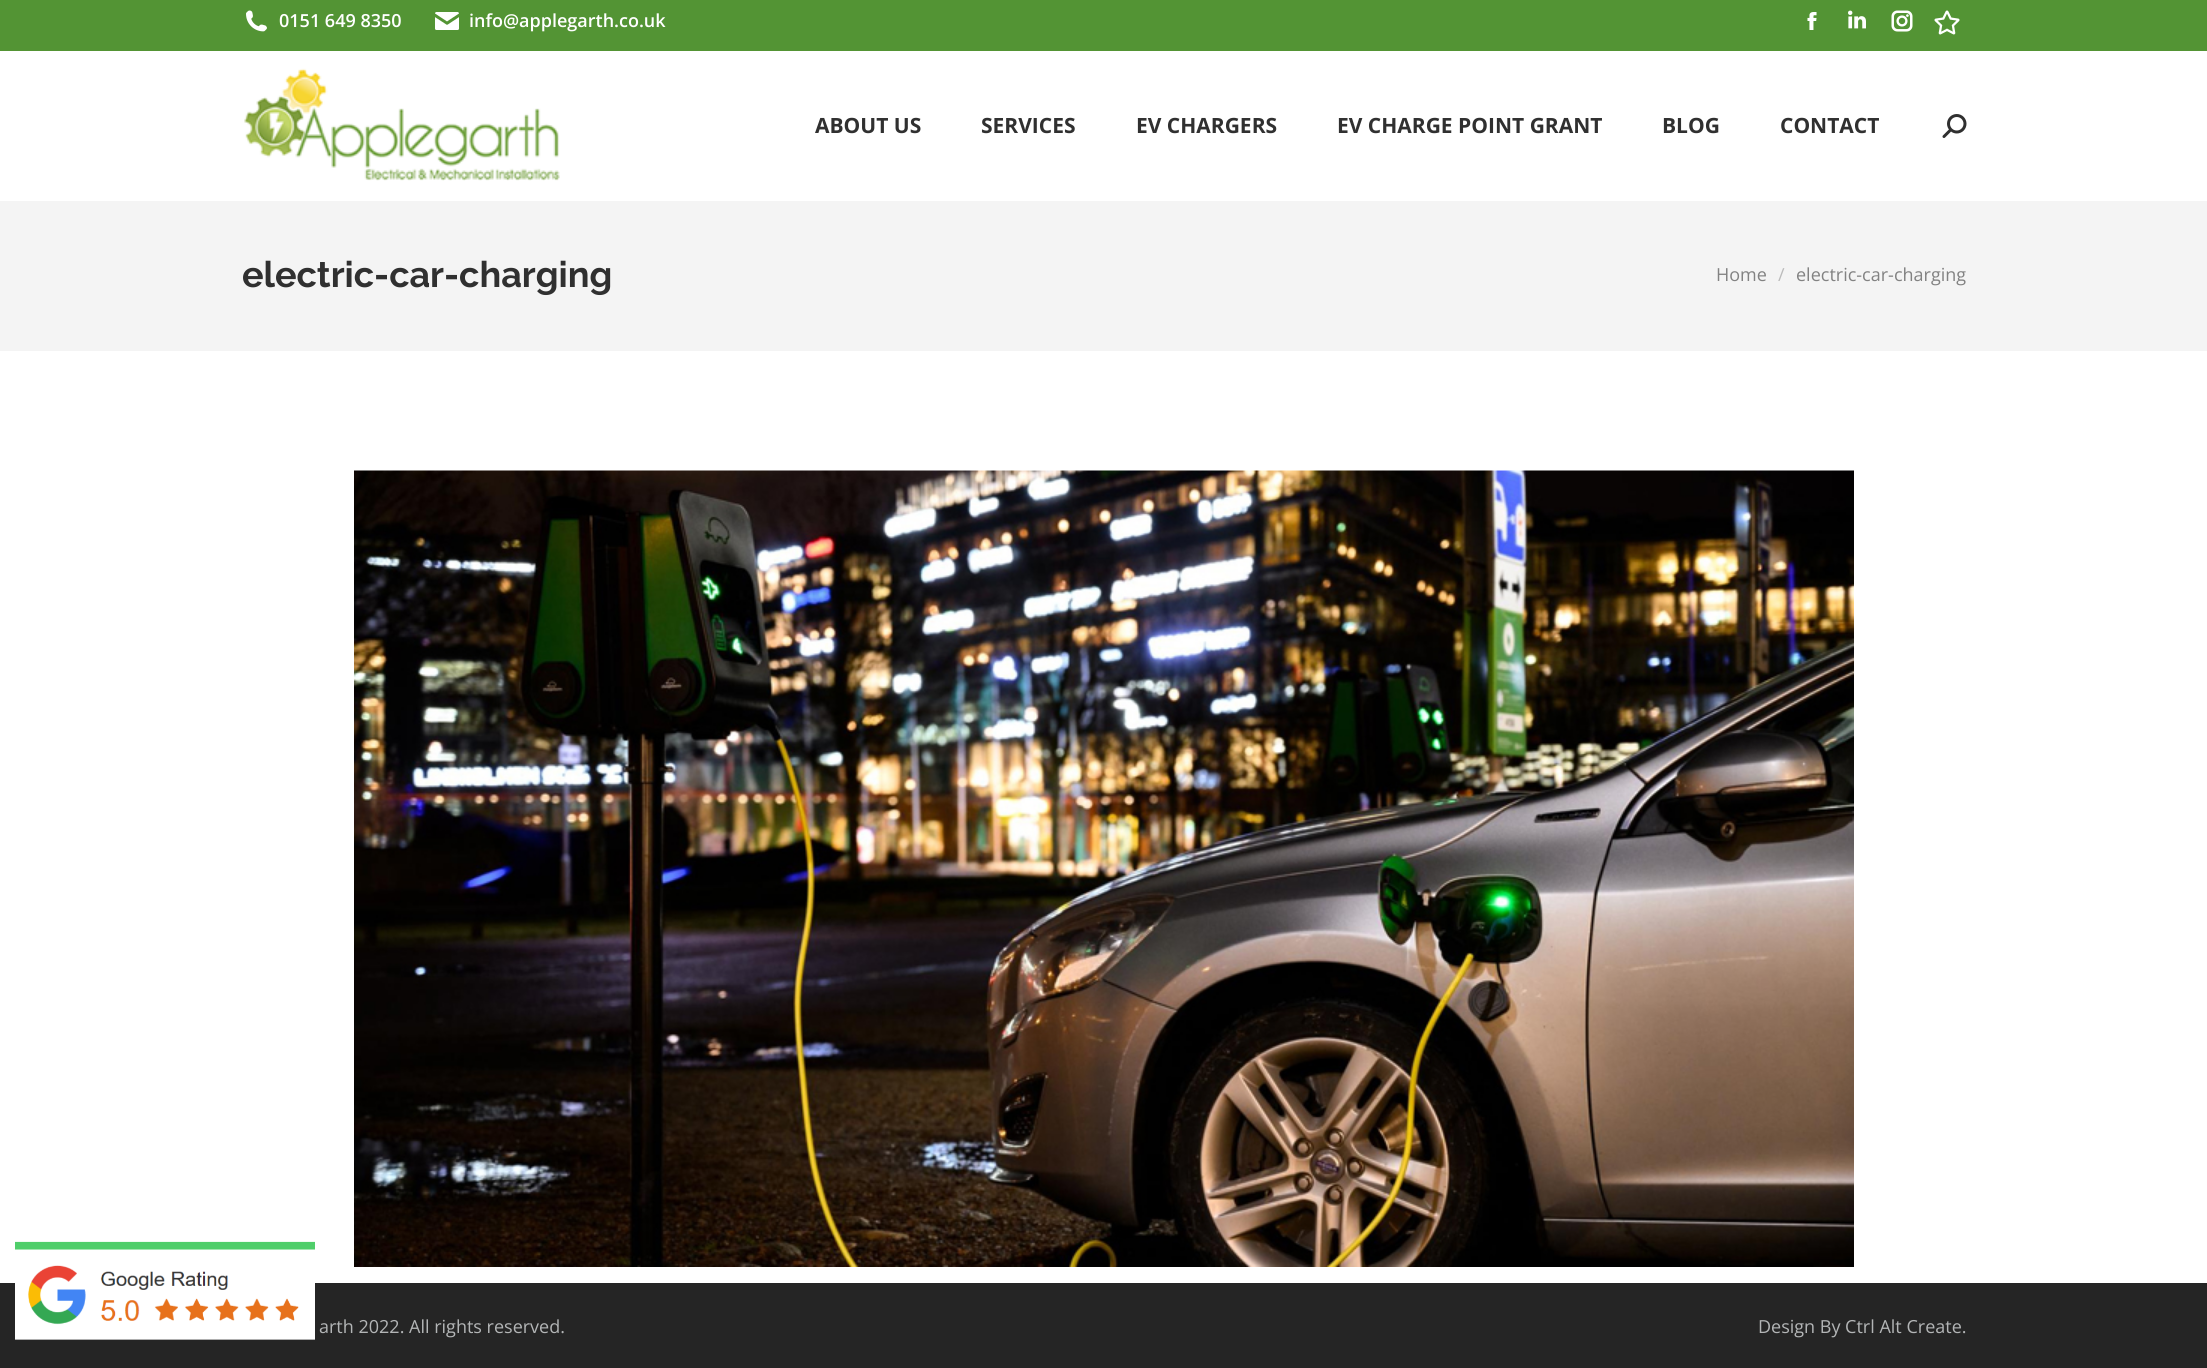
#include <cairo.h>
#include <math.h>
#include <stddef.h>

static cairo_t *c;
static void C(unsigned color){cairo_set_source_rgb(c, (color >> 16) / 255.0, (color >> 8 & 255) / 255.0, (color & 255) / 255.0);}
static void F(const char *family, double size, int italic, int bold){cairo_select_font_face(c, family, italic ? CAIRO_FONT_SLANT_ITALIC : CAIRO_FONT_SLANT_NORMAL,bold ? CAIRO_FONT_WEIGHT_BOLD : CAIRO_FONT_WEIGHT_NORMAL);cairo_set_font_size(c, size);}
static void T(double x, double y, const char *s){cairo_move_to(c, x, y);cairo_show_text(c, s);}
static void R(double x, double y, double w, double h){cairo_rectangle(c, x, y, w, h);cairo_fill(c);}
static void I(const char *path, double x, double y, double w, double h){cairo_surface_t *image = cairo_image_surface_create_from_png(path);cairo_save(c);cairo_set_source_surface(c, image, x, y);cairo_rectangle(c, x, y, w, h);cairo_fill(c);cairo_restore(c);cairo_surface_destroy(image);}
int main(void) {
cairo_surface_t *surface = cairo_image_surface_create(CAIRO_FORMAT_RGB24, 2207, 1368);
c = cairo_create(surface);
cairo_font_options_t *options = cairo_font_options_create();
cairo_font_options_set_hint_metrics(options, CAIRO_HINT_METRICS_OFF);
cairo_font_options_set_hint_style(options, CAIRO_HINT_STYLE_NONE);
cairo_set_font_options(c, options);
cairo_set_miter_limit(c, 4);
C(0xffffff);
cairo_paint(c);
C(0x252525);
R(0,1283,2207,85);
I("1.png",15,1241,300,99);
C(0x539434);
R(0,0,2207,51);
I("2.png",246,10,21,22);
F("Open Sans SemiBold",18,0,0);
C(0xffffff);
T(279,27,"0151 649 8350");
I("3.png",435,12,24,18);
T(469,27,"info@applegarth.co.uk");
I("4.png",1807,12,10,18);
I("5.png",1848,10,18,19);
I("6.png",1891,10,22,22);
I("7.png",1934,10,26,25);
I("8.png",244,68,316,113);
F("Open Sans",21,0,1);
C(0x303030);
T(815,133,"ABOUT US");
T(981,133,"SERVICES");
T(1136,133,"EV CHARGERS");
T(1337,133,"EV CHARGE POINT GRANT");
T(1662,133,"BLOG");
T(1780,133,"CONTACT");
I("9.png",1942,114,25,24);
C(0xf4f4f4);
R(0,201,2207,150);
F("Raleway",36,0,1);
C(0x303030);
T(242,287,"electric-car-charging");
F("Open Sans",18,0,0);
C(0x828282);
T(1716,281,"Home");
C(0xbbbbbb);
T(1778,281,"/");
C(0x828282);
T(1796,281,"electric-car-charging");
I("10.png",354,470,1500,797);
C(0xb3b5b6);
T(319,1333,"arth 2022. All rights reserved.");
T(1758,1333,"Design By Ctrl Alt Create.");
cairo_surface_write_to_png(surface, "o.png");
cairo_font_options_destroy(options);
cairo_destroy(c);
cairo_surface_destroy(surface);
return 0;
}
